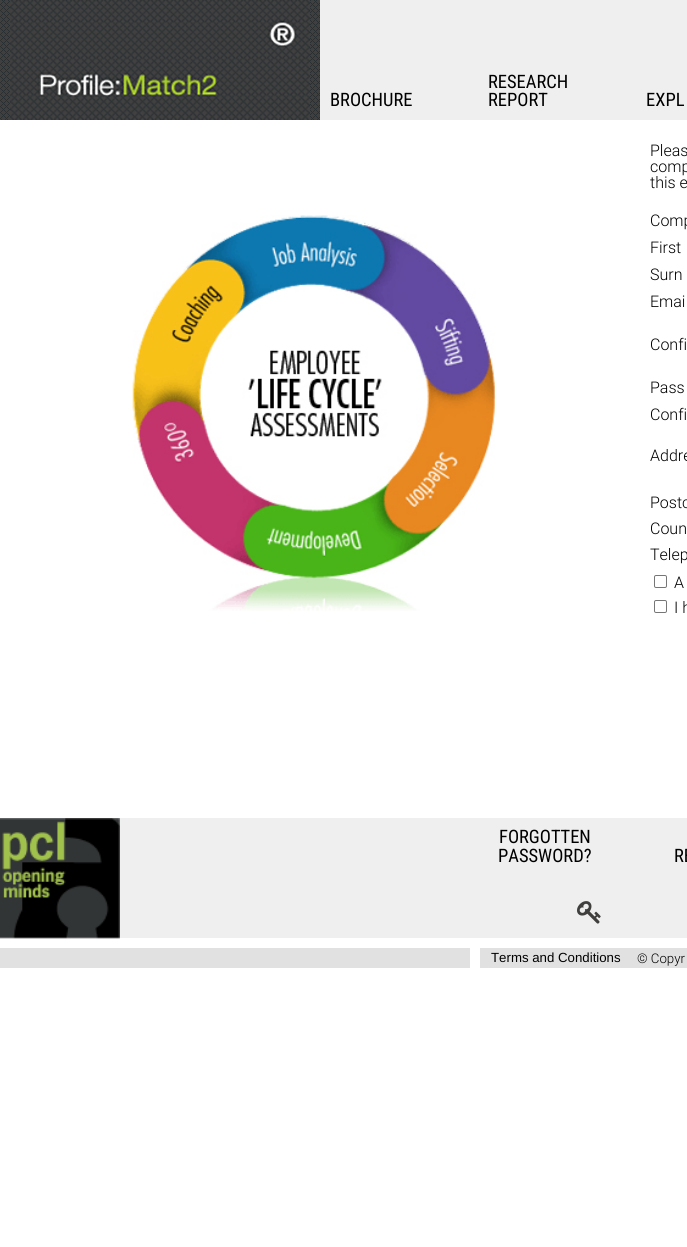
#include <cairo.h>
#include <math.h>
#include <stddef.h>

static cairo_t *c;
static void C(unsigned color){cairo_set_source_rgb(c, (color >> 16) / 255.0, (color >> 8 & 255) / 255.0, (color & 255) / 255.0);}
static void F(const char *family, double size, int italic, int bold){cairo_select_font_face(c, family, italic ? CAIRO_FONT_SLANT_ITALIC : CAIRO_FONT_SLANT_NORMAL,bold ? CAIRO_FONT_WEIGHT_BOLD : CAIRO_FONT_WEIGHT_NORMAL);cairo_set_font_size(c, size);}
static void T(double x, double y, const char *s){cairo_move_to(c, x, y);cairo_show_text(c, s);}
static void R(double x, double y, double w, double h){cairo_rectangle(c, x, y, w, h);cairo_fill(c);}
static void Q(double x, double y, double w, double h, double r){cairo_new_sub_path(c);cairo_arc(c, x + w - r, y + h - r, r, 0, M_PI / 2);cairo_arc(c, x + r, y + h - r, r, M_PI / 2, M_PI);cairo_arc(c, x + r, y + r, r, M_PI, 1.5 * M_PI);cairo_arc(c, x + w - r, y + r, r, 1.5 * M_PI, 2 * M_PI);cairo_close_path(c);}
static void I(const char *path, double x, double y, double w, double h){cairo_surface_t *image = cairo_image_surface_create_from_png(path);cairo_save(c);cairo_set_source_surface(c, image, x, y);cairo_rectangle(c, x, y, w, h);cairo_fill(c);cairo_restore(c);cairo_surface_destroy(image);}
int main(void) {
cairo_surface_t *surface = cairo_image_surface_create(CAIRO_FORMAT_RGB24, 687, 1247);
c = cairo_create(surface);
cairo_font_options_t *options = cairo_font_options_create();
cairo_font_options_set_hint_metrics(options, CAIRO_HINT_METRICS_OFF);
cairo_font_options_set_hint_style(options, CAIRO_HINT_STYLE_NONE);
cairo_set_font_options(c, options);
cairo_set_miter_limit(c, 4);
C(0xffffff);
cairo_paint(c);
I("1.png",0,0,320,120);
I("2.png",10,0,300,120);
C(0xefefef);
R(320,0,367,120);
F("Roboto Condensed",18.5,0,0);
C(0x000000);
T(330,106,"BROCHURE");
T(488,88,"RESEARCH");
T(488,106,"REPORT");
T(646,106,"EXPL");
I("3.png",132,215,364,396);
F("Roboto Light",16,0,0);
T(650,156,"Pleas");
T(650,172,"comp");
T(650,188,"this e");
T(650,226,"Comp");
T(650,253,"First");
T(650,280,"Surn");
T(650,307,"Emai");
T(650,350,"Confi");
T(650,393,"Pass");
T(650,420,"Confi");
T(650,461,"Addre");
T(650,508,"Postc");
T(650,534,"Coun");
T(650,560,"Telep");
Q(654.5,575.5,12,12,1.5);
C(0x767676);
cairo_set_line_width(c,1);
cairo_stroke(c);
C(0x000000);
T(674,588,"A");
Q(654.5,600.5,12,12,1.5);
C(0x767676);
cairo_stroke(c);
C(0x000000);
T(674,613,"I h");
C(0xefefef);
R(0,818,687,120);
I("4.png",0,818,120,121);
F("Roboto Condensed",18.5,0,0);
C(0x000000);
T(499,843,"FORGOTTEN");
T(498,862,"PASSWORD?");
I("5.png",577,901,24,23);
T(674,862,"RE");
C(0xe1e1e1);
R(0,948,470,20);
R(480,948,207,20);
F("Liberation Sans",13.25,0,0);
C(0x000000);
T(491,962,"Terms and Conditions");
F("Roboto Light",13.25,0,0);
T(637,963,"© Copyr");
cairo_surface_write_to_png(surface, "o.png");
cairo_font_options_destroy(options);
cairo_destroy(c);
cairo_surface_destroy(surface);
return 0;
}
